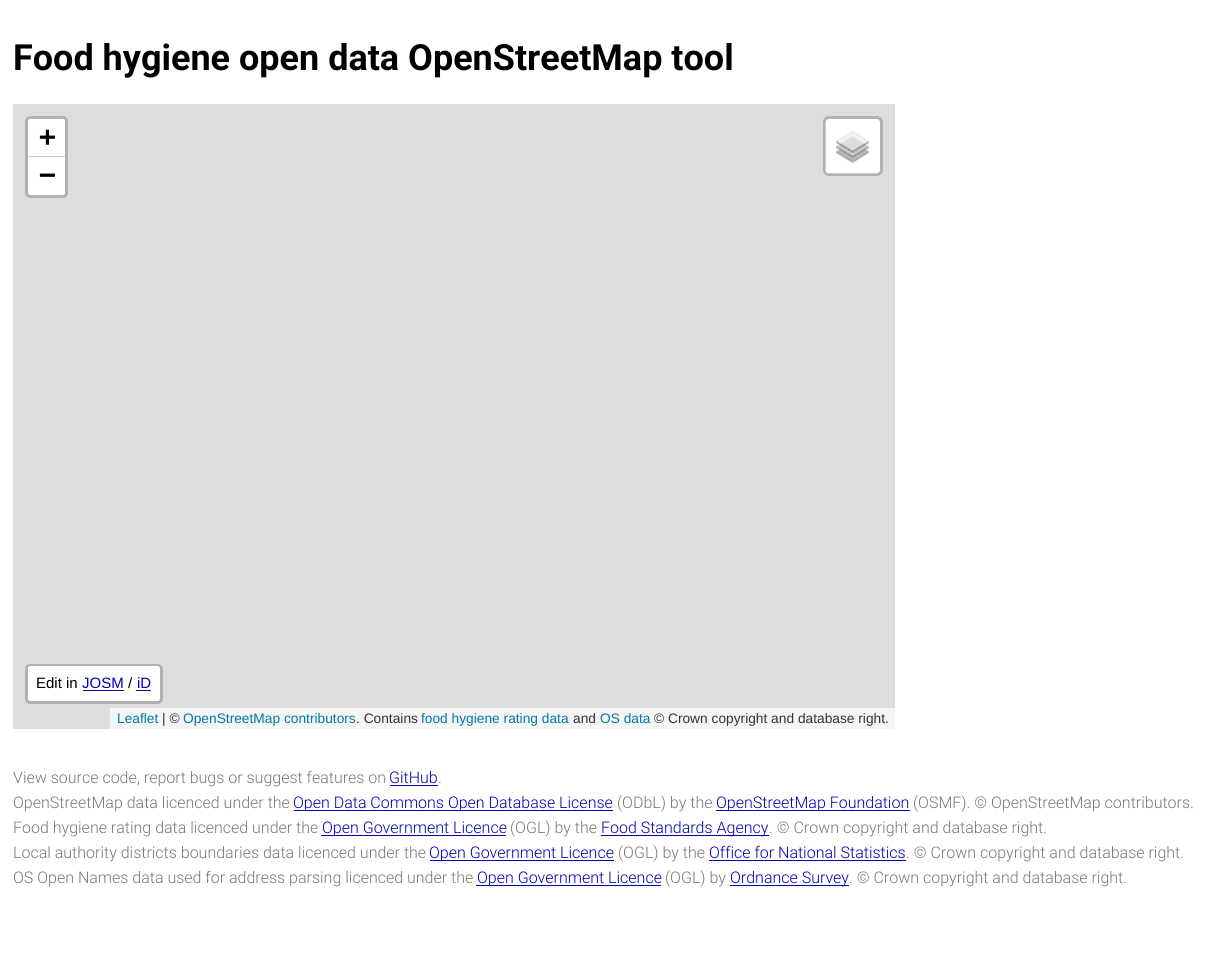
#include <cairo.h>
#include <math.h>
#include <stddef.h>

static cairo_t *c;
static void C(unsigned color){cairo_set_source_rgb(c, (color >> 16) / 255.0, (color >> 8 & 255) / 255.0, (color & 255) / 255.0);}
static void F(const char *family, double size, int italic, int bold){cairo_select_font_face(c, family, italic ? CAIRO_FONT_SLANT_ITALIC : CAIRO_FONT_SLANT_NORMAL,bold ? CAIRO_FONT_WEIGHT_BOLD : CAIRO_FONT_WEIGHT_NORMAL);cairo_set_font_size(c, size);}
static void T(double x, double y, const char *s){cairo_move_to(c, x, y);cairo_show_text(c, s);}
static void R(double x, double y, double w, double h){cairo_rectangle(c, x, y, w, h);cairo_fill(c);}
static void Q(double x, double y, double w, double h, double r){cairo_new_sub_path(c);cairo_arc(c, x + w - r, y + h - r, r, 0, M_PI / 2);cairo_arc(c, x + r, y + h - r, r, M_PI / 2, M_PI);cairo_arc(c, x + r, y + r, r, M_PI, 1.5 * M_PI);cairo_arc(c, x + w - r, y + r, r, 1.5 * M_PI, 2 * M_PI);cairo_close_path(c);}
static void I(const char *path, double x, double y, double w, double h){cairo_surface_t *image = cairo_image_surface_create_from_png(path);cairo_save(c);cairo_set_source_surface(c, image, x, y);cairo_rectangle(c, x, y, w, h);cairo_fill(c);cairo_restore(c);cairo_surface_destroy(image);}
int main(void) {
cairo_surface_t *surface = cairo_image_surface_create(CAIRO_FORMAT_RGB24, 1232, 973);
c = cairo_create(surface);
cairo_font_options_t *options = cairo_font_options_create();
cairo_font_options_set_hint_metrics(options, CAIRO_HINT_METRICS_OFF);
cairo_font_options_set_hint_style(options, CAIRO_HINT_STYLE_NONE);
cairo_set_font_options(c, options);
cairo_set_miter_limit(c, 4);
C(0xffffff);
cairo_paint(c);
F("Roboto",36,0,1);
C(0x000000);
T(13,70,"Food hygiene open data OpenStreetMap tool");
C(0xdddddd);
R(13,104,882,625);
Q(26.5,117.5,40,79,3.5);
C(0xb1b1b1);
cairo_set_line_width(c,3);
cairo_stroke(c);
C(0xffffff);
cairo_new_path(c);
cairo_move_to(c,30.5,119);
cairo_line_to(c,62.5,119);
cairo_curve_to(c,64,119,65,120,65,121.5);
cairo_line_to(c,65,158);
cairo_line_to(c,28,158);
cairo_line_to(c,28,121.5);
cairo_curve_to(c,28,120,29,119,30.5,119);
cairo_close_path(c);
cairo_fill(c);
C(0xcccccc);
R(28,156,37,1);
F("DejaVu Sans Mono",28,0,1);
C(0x000000);
T(39,146,"+");
C(0xffffff);
cairo_new_path(c);
cairo_move_to(c,28,158);
cairo_line_to(c,65,158);
cairo_line_to(c,65,192.5);
cairo_curve_to(c,65,194,64,195,62.5,195);
cairo_line_to(c,30.5,195);
cairo_curve_to(c,29,195,28,194,28,192.5);
cairo_close_path(c);
cairo_fill(c);
C(0x000000);
T(39,184,"−");
C(0xffffff);
Q(825,119,55,55,4);
cairo_fill(c);
Q(824.5,117.5,57,57,4.5);
cairo_set_source_rgba(c,0,0,0,0.2);
cairo_stroke(c);
I("1.png",836,131,33,32);
Q(26.5,665.5,135,37,3.5);
C(0xb1b1b1);
cairo_stroke(c);
C(0xffffff);
Q(28,666,132,35,2.5);
cairo_fill(c);
F("Liberation Sans",15,0,0);
C(0x000000);
T(36,688,"Edit in");
C(0x0000b4);
T(82,688,"JOSM");
R(83,690,41,1);
C(0x000000);
T(128,688,"/");
C(0x0000b4);
T(137,688,"iD");
R(136,690,15,1);
C(0xf5f5f5);
R(110,708,785,21);
F("Liberation Sans",13.75,0,0);
C(0x0078a8);
T(117,723,"Leaflet");
C(0x333333);
T(162,723,"| ©");
C(0x0078a8);
T(183,723,"OpenStreetMap contributors");
C(0x333333);
T(356,723,". Contains");
C(0x0078a8);
T(421,723,"food hygiene rating data");
C(0x333333);
T(573,723,"and");
C(0x0078a8);
T(600,723,"OS data");
C(0x333333);
T(654,723,"© Crown copyright and database right.");
F("Roboto Light",16,0,0);
C(0x787878);
T(13,783,"View source code, report bugs or suggest features on");
C(0x0000b4);
T(389,783,"GitHub");
R(390,785,48,1);
C(0x787878);
T(438,783,".");
T(13,808,"OpenStreetMap data licenced under the");
C(0x0000b4);
R(294,810,319,1);
T(293,808,"Open Data Commons Open Database License");
C(0x787878);
T(617,808,"(ODbL) by the");
C(0x0000b4);
R(716,810,194,1);
T(716,808,"OpenStreetMap Foundation");
C(0x787878);
T(913,808,"(OSMF). © OpenStreetMap contributors.");
T(13,833,"Food hygiene rating data licenced under the");
C(0x0000b4);
R(321,835,185,1);
T(322,833,"Open Government Licence");
C(0x787878);
T(510,833,"(OGL) by the");
C(0x0000b4);
R(601,835,168,1);
T(601,833,"Food Standards Agency");
C(0x787878);
T(769,833,". © Crown copyright and database right.");
T(13,858,"Local authority districts boundaries data licenced under the");
C(0x0000b4);
R(430,860,184,1);
T(429,858,"Open Government Licence");
C(0x787878);
T(618,858,"(OGL) by the");
C(0x0000b4);
T(709,858,"Office for National Statistics");
R(709,860,197,1);
C(0x787878);
T(906,858,". © Crown copyright and database right.");
T(13,883,"OS Open Names data used for address parsing licenced under the");
C(0x0000b4);
R(476,885,185,1);
T(477,883,"Open Government Licence");
C(0x787878);
T(665,883,"(OGL) by");
C(0x0000b4);
R(730,885,119,1);
T(730,883,"Ordnance Survey");
C(0x787878);
T(849,883,". © Crown copyright and database right.");
cairo_surface_write_to_png(surface, "o.png");
cairo_font_options_destroy(options);
cairo_destroy(c);
cairo_surface_destroy(surface);
return 0;
}
